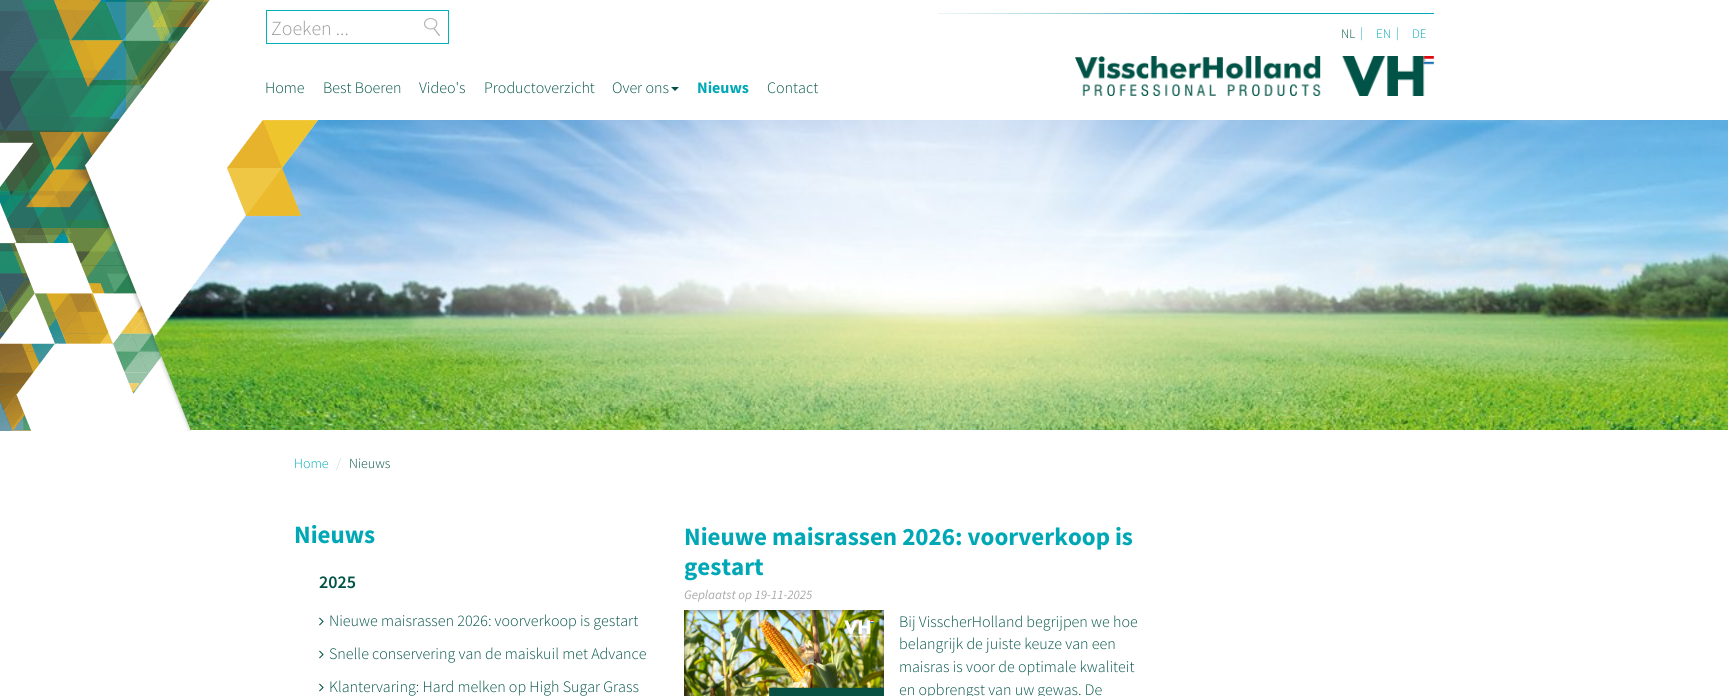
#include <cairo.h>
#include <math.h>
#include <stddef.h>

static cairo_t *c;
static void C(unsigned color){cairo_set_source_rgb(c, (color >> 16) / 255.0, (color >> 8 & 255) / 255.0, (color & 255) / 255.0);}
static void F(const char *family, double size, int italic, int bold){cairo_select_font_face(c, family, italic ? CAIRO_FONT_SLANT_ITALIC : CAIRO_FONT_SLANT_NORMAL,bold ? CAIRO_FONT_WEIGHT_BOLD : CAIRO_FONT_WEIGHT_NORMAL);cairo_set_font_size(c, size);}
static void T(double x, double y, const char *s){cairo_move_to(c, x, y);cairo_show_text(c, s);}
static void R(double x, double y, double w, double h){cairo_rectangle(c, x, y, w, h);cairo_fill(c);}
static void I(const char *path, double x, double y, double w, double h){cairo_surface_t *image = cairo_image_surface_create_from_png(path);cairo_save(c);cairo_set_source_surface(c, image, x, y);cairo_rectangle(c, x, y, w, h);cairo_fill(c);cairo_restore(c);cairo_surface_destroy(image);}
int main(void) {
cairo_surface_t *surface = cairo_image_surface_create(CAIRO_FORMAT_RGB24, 1728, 696);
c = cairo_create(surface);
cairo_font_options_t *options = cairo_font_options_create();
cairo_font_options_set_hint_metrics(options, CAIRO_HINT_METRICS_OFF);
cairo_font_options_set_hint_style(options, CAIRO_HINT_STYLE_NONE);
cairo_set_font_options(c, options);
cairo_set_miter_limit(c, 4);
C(0xffffff);
cairo_paint(c);
I("5.png",2,120,1726,310);
I("1.png",0,0,318,431);
cairo_rectangle(c,266.5,10.5,149,33);
C(0x00b1b9);
cairo_set_line_width(c,1);
cairo_stroke(c);
F("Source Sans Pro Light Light",20,0,0);
C(0x999999);
T(271,35,"Zoeken ...");
C(0xffffff);
R(415,11,1,32);
I("2.png",424,18,16,18);
C(0x00b1b9);
R(415,10,34,1);
R(448,10,1,34);
R(415,43,34,1);
I("3.png",938,13,496,1);
F("Source Sans Pro Light Light",13,0,0);
C(0x005245);
T(1341,38,"NL");
C(0x00a8b6);
T(1360,37,"|");
T(1376,38,"EN");
T(1396,37,"|");
T(1412,38,"DE");
F("Source Sans Pro Light Light",16,0,0);
C(0x005245);
T(265,93,"Home");
T(323,93,"Best Boeren");
T(419,93,"Video's");
T(484,93,"Productoverzicht");
T(612,93,"Over ons");
cairo_new_path(c);
cairo_move_to(c,671,87);
cairo_line_to(c,679,87);
cairo_line_to(c,675,91);
cairo_close_path(c);
cairo_fill(c);
F("Source Sans Pro",16,0,1);
C(0x00a8b6);
T(697,93,"Nieuws");
F("Source Sans Pro Light Light",16,0,0);
C(0x005245);
T(767,93,"Contact");
I("4.png",1075,56,359,40);
F("Source Sans Pro Light Light",14,0,0);
C(0x00a8b6);
T(294,468,"Home");
C(0xcccccc);
T(336,468,"/");
C(0x005245);
T(349,468,"Nieuws");
F("Source Sans Pro",25,0,1);
C(0x00a8b6);
T(294,543,"Nieuws");
F("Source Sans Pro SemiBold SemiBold",18,0,0);
C(0x005245);
T(319,588,"2025");
I("6.png",319,617,5,9);
F("Source Sans Pro Light Light",16,0,0);
T(329,626,"Nieuwe maisrassen 2026: voorverkoop is gestart");
I("6.png",319,650,5,9);
T(329,659,"Snelle conservering van de maiskuil met Advance");
I("6.png",319,683,5,9);
T(329,692,"Klantervaring: Hard melken op High Sugar Grass");
F("Source Sans Pro",25,0,1);
C(0x00a8b6);
T(684,545,"Nieuwe maisrassen 2026: voorverkoop is");
T(684,575,"gestart");
F("Source Sans Pro",13,1,0);
C(0xaaaaaa);
T(684,599,"Geplaatst op 19-11-2025");
I("7.png",684,610,200,86);
F("Source Sans Pro Light Light",16,0,0);
C(0x005245);
T(899,627,"Bij VisscherHolland begrijpen we hoe");
T(899,649,"belangrijk de juiste keuze van een");
T(899,672,"maisras is voor de optimale kwaliteit");
T(899,695,"en opbrengst van uw gewas. De");
cairo_surface_write_to_png(surface, "o.png");
cairo_font_options_destroy(options);
cairo_destroy(c);
cairo_surface_destroy(surface);
return 0;
}
